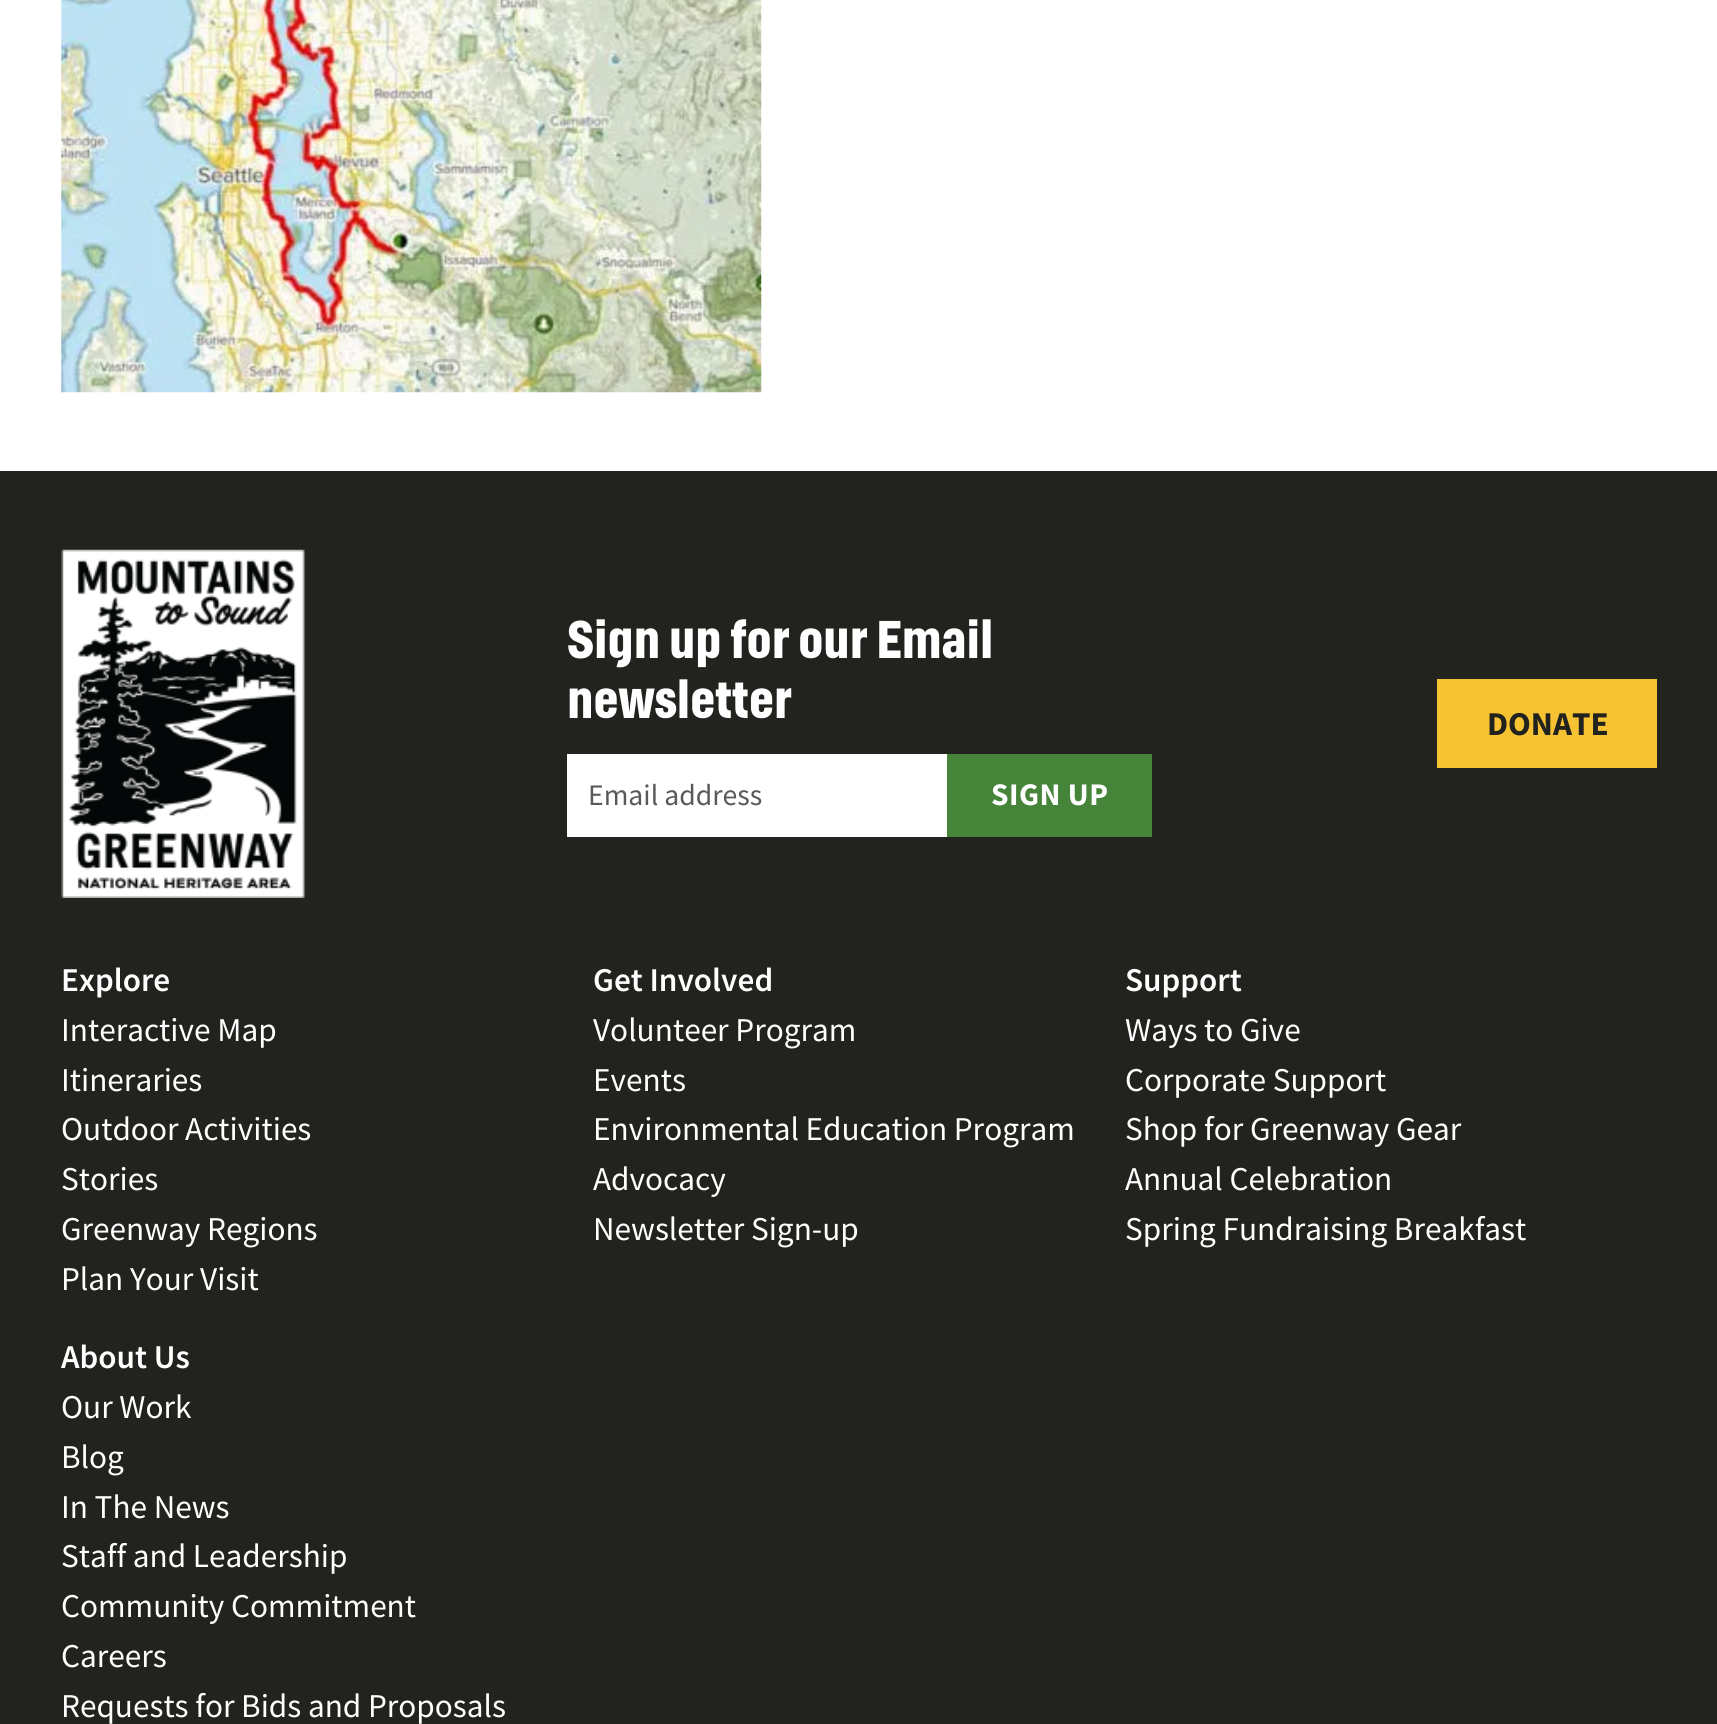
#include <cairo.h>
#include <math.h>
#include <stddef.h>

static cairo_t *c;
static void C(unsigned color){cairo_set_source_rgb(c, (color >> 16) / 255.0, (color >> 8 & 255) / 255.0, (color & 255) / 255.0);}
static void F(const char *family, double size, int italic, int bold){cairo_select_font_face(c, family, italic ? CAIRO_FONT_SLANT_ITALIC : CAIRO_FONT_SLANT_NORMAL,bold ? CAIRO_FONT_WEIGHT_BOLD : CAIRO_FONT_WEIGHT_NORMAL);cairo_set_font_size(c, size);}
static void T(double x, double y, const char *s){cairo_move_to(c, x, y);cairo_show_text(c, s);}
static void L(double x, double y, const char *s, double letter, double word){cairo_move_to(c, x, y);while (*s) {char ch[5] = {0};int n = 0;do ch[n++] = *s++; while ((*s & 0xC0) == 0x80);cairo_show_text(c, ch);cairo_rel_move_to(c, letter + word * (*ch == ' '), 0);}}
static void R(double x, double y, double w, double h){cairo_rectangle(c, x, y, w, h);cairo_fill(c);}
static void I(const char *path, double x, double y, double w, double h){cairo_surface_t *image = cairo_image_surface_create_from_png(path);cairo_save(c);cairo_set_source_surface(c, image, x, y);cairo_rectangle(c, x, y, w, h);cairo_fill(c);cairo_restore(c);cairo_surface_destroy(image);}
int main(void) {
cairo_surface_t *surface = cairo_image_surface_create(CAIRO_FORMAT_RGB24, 1717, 1724);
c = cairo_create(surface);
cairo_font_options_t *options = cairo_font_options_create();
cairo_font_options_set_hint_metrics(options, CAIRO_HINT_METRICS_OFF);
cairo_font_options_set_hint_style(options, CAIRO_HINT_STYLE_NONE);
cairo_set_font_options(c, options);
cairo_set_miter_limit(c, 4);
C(0xffffff);
cairo_paint(c);
I("1.png",61,0,701,393);
C(0x22221e);
R(0,471,1717,1253);
I("2.png",61,549,244,349);
F("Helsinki",52.5,0,1);
C(0xffffff);
T(567,658,"Sign up for our Email");
T(567,718,"newsletter");
R(567,754,380,83);
F("Source Sans Pro",29.75,0,0);
C(0x595959);
T(588,805,"Email address");
C(0x46843a);
R(947,754,205,83);
F("Source Sans Pro",31.5,0,1);
C(0xffffff);
L(991,805,"SIGN UP",.5,0);
C(0xf8c332);
R(1437,679,220,89);
F("Source Sans Pro",33.25,0,1);
C(0x22221e);
T(1487,735,"DONATE");
F("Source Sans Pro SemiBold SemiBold",33.25,0,0);
C(0xffffff);
T(61,991,"Explore");
F("Source Sans Pro",33.25,0,0);
T(61,1041,"Interactive Map");
T(61,1091,"Itineraries");
T(61,1140,"Outdoor Activities");
T(61,1190,"Stories");
T(61,1240,"Greenway Regions");
T(61,1290,"Plan Your Visit");
F("Source Sans Pro SemiBold SemiBold",33.25,0,0);
T(593,991,"Get Involved");
F("Source Sans Pro",33.25,0,0);
T(593,1041,"Volunteer Program");
T(593,1091,"Events");
T(593,1140,"Environmental Education Program");
T(593,1190,"Advocacy");
T(593,1240,"Newsletter Sign-up");
F("Source Sans Pro SemiBold SemiBold",33.25,0,0);
T(1125,991,"Support");
F("Source Sans Pro",33.25,0,0);
T(1125,1041,"Ways to Give");
T(1125,1091,"Corporate Support");
T(1125,1140,"Shop for Greenway Gear");
T(1125,1190,"Annual Celebration");
T(1125,1240,"Spring Fundraising Breakfast");
F("Source Sans Pro SemiBold SemiBold",33.25,0,0);
T(61,1368,"About Us");
F("Source Sans Pro",33.25,0,0);
T(61,1418,"Our Work");
T(61,1468,"Blog");
T(61,1518,"In The News");
T(61,1567,"Staff and Leadership");
T(61,1617,"Community Commitment");
T(61,1667,"Careers");
T(61,1717,"Requests for Bids and Proposals");
cairo_surface_write_to_png(surface, "o.png");
cairo_font_options_destroy(options);
cairo_destroy(c);
cairo_surface_destroy(surface);
return 0;
}
